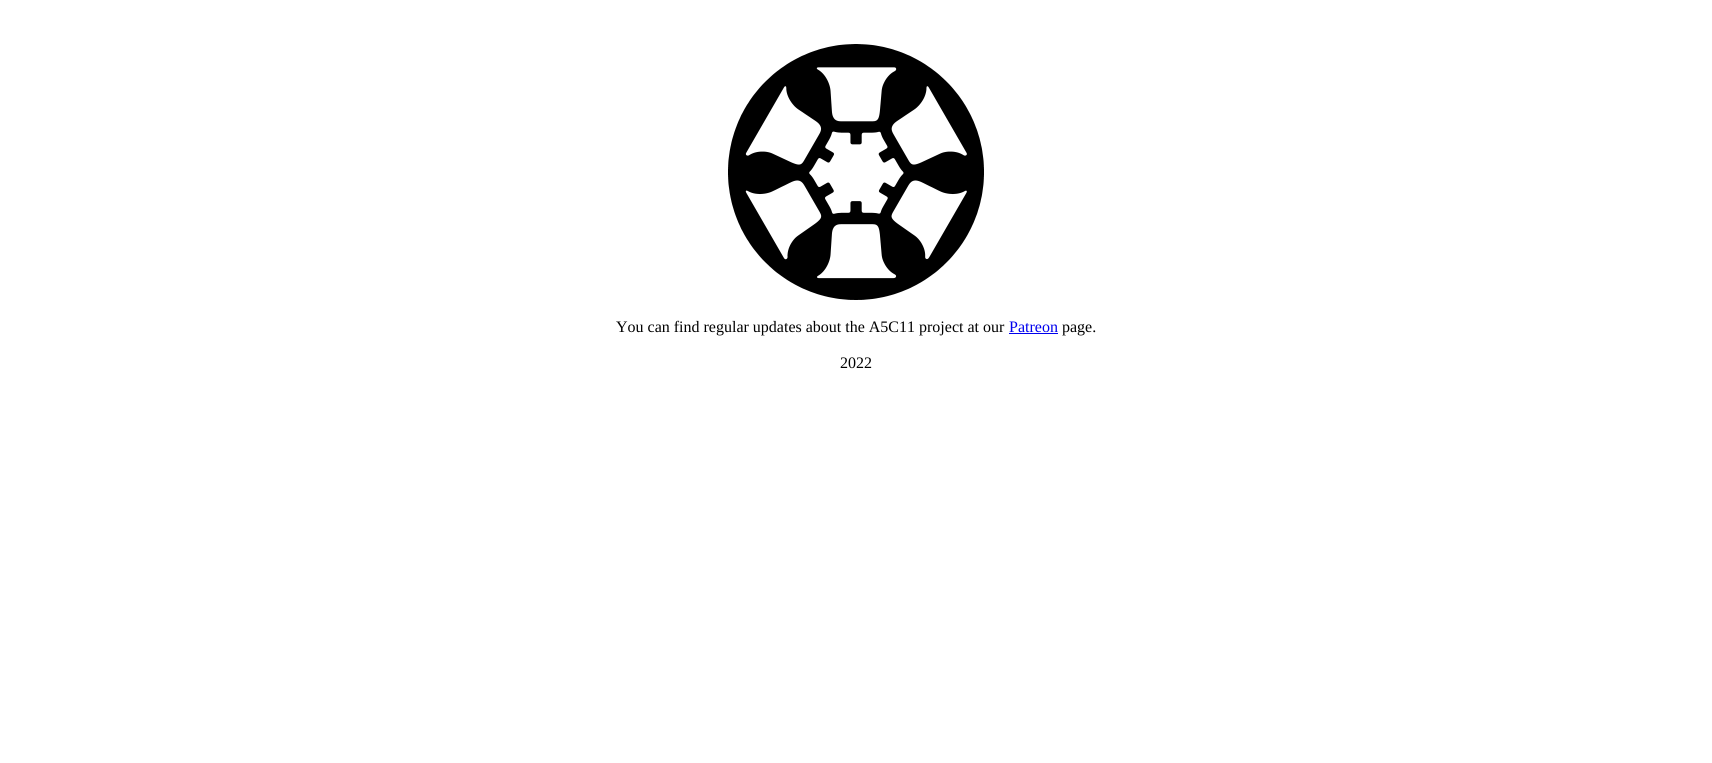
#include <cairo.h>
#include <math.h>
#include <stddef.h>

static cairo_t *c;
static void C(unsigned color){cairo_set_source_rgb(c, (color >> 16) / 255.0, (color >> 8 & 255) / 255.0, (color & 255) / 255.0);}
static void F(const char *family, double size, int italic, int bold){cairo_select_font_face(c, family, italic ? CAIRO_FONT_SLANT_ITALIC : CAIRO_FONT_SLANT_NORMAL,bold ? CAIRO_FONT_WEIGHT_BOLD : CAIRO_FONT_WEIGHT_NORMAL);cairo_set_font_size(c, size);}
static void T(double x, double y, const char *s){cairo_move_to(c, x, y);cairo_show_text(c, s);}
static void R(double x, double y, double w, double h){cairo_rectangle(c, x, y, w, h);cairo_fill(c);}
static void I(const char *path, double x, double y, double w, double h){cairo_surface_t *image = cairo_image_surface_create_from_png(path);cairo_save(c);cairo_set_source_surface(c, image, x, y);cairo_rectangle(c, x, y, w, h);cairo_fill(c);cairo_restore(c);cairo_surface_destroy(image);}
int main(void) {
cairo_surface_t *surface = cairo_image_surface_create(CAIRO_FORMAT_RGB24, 1712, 763);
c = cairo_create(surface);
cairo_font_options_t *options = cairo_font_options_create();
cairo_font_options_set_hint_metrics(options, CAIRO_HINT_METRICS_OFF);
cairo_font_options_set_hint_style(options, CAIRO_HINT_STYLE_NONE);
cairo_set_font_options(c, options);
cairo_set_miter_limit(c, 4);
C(0xffffff);
cairo_paint(c);
I("1.png",728,44,256,256);
F("Liberation Serif",16,0,0);
C(0x000000);
T(616,332,"You can find regular updates about the A5C11 project at our");
C(0x0000ee);
T(1009,332,"Patreon");
R(1009,333,49,1);
C(0x000000);
T(1062,332,"page.");
T(840,368,"2022");
cairo_surface_write_to_png(surface, "o.png");
cairo_font_options_destroy(options);
cairo_destroy(c);
cairo_surface_destroy(surface);
return 0;
}
